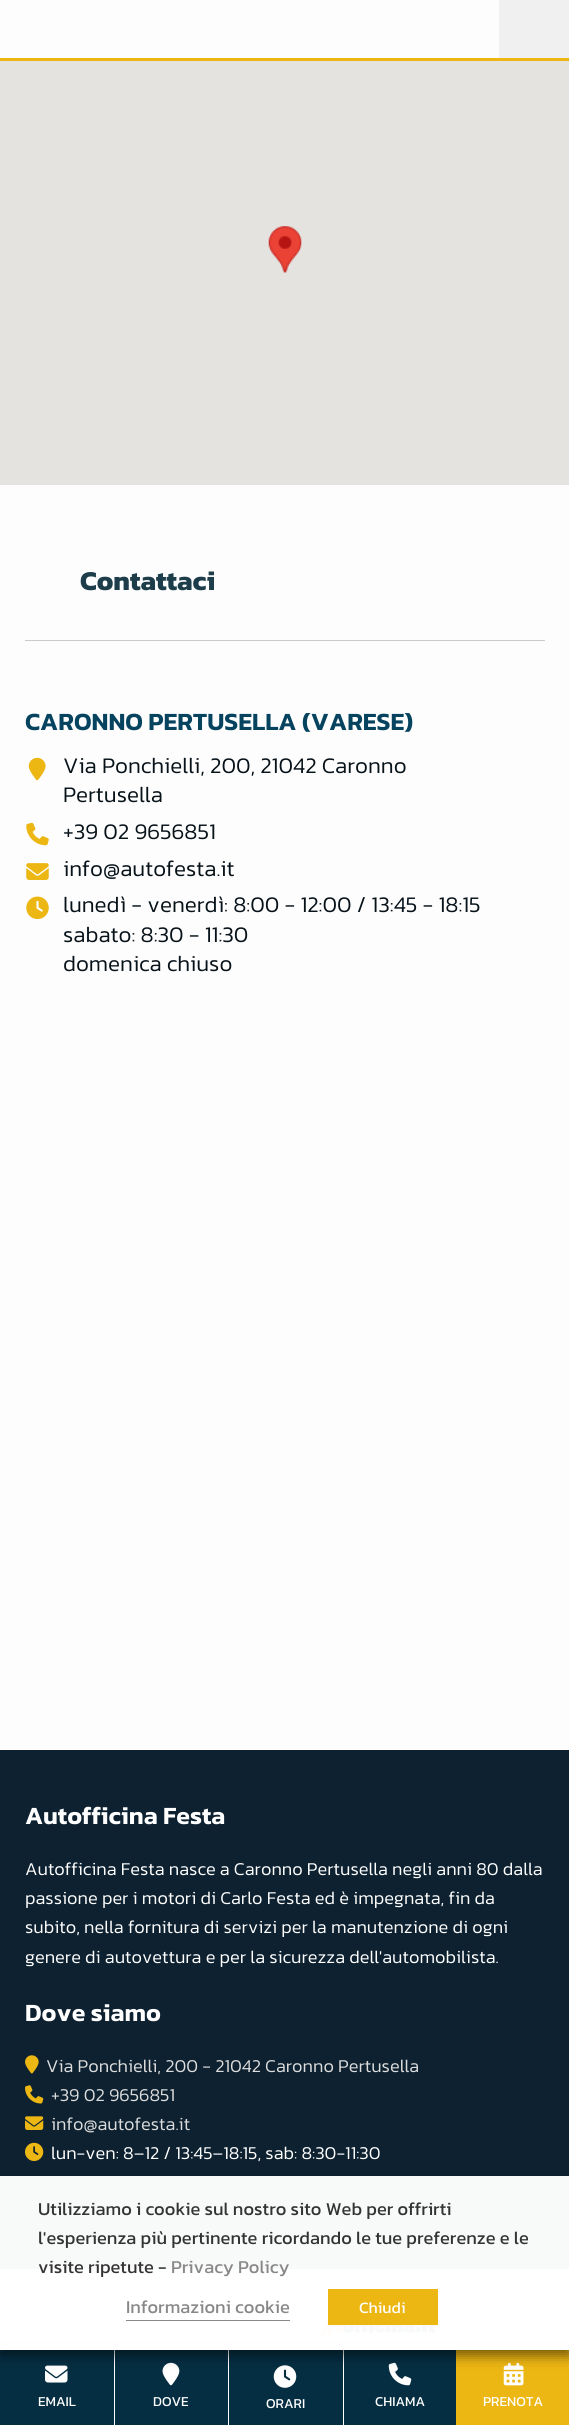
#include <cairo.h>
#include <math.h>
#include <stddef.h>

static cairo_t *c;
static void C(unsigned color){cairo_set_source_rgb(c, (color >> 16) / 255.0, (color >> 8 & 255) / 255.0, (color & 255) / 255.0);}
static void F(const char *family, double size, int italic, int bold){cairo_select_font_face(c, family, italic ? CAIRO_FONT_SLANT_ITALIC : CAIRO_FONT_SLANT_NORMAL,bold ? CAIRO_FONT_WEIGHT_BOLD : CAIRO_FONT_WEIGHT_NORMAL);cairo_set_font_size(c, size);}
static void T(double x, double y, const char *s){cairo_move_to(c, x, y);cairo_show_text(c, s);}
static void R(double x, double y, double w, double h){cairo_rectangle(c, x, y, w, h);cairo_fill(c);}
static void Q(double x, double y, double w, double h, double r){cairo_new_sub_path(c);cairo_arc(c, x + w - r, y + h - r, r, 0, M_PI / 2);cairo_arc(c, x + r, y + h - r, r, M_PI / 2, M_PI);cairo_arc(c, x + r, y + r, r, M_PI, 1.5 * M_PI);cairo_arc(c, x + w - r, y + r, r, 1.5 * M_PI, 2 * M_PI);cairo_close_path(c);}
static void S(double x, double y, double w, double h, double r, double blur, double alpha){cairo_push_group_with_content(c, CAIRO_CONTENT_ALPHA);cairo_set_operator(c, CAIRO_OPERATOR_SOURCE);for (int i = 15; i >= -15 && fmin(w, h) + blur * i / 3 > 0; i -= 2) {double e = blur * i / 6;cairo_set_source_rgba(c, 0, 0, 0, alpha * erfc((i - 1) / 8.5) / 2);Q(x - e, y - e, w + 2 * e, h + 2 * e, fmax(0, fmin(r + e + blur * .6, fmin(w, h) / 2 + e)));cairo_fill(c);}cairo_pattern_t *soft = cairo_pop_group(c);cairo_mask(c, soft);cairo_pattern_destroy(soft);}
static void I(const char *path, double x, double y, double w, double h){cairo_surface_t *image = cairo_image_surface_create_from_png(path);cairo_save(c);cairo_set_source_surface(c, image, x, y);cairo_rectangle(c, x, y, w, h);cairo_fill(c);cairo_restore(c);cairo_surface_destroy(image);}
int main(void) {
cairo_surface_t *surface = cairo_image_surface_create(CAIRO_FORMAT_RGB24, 569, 2425);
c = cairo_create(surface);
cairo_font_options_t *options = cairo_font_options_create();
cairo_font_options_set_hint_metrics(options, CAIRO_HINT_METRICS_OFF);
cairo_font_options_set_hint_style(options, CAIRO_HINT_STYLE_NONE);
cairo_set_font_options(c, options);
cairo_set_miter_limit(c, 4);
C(0xfdfdfe);
cairo_paint(c);
C(0xecb613);
R(0,58,569,3);
C(0xf0f0f1);
R(499,0,70,58);
C(0xe5e3df);
R(0,61,569,424);
I("1.png",268,226,34,47);
C(0xcacbcd);
R(25,640,520,1);
F("Kanit",27.5,0,1);
C(0x1c3d49);
T(80,590,"Contattaci");
F("Kanit SemiBold",25,0,0);
C(0x06435f);
T(25,730,"CARONNO PERTUSELLA (VARESE)");
I("2.png",28,757,18,24);
F("Kanit Light",22.5,0,0);
C(0x071219);
T(63,773,"Via Ponchielli, 200, 21042 Caronno");
T(63,802,"Pertusella");
I("3.png",26,822,23,24);
T(63,839,"+39 02 9656851");
I("4.png",26,863,23,17);
T(63,876,"info@autofesta.it");
I("5.png",26,896,23,24);
T(63,912,"lunedì - venerdì: 8:00 - 12:00 / 13:45 - 18:15");
T(63,942,"sabato: 8:30 - 11:30");
T(63,971,"domenica chiuso");
C(0x0d2130);
R(0,1750,569,519);
F("Kanit SemiBold",25,0,0);
C(0xffffff);
T(25,1824,"Autofficina Festa");
F("Kanit Light",18.25,0,0);
T(25,1875,"Autofficina Festa nasce a Caronno Pertusella negli anni 80 dalla");
T(25,1904,"passione per i motori di Carlo Festa ed è impegnata, fin da");
T(25,1933,"subito, nella fornitura di servizi per la manutenzione di ogni");
T(25,1963,"genere di autovettura e per la sicurezza dell'automobilista.");
F("Kanit SemiBold",25,0,0);
T(25,2021,"Dove siamo");
I("6.png",25,2055,14,19);
F("Kanit Light",18.25,0,0);
C(0xdddddd);
T(46,2072,"Via Ponchielli, 200 - 21042 Caronno Pertusella");
I("7.png",25,2085,19,19);
T(51,2101,"+39 02 9656851");
I("8.png",25,2116,19,14);
T(51,2130,"info@autofesta.it");
I("9.png",25,2142,19,19);
C(0xffffff);
T(51,2159,"lun-ven: 8–12 / 13:45–18:15, sab: 8:30-11:30");
C(0xf0f0f1);
R(0,2269,569,81);
I("10.png",321,2320,114,17);
C(0x503b3b);
S(0,2350,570,75,0,6,.3);
C(0x052e42);
R(0,2350,114,75);
I("11.png",45,2365,23,18);
F("Kanit",13.75,0,0);
C(0xffffff);
T(38,2406,"EMAIL");
C(0x052e42);
R(115,2350,113,75);
C(0xffffff);
R(114,2350,1,75);
I("12.png",162,2362,18,24);
T(153,2406,"DOVE");
C(0x052e42);
R(229,2350,114,75);
C(0xffffff);
R(228,2350,1,75);
I("13.png",273,2365,24,23);
T(266,2408,"ORARI");
C(0x052e42);
R(344,2350,112,75);
C(0xffffff);
R(343,2350,1,75);
I("14.png",388,2362,24,24);
T(375,2406,"CHIAMA");
C(0xecb613);
R(456,2350,113,75);
I("15.png",503,2362,21,24);
C(0xffffff);
T(483,2406,"PRENOTA");
cairo_save(c);
cairo_set_fill_rule(c,CAIRO_FILL_RULE_EVEN_ODD);
cairo_new_path(c);
cairo_move_to(c,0,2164);
cairo_line_to(c,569,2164);
cairo_line_to(c,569,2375);
cairo_line_to(c,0,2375);
cairo_close_path(c);
cairo_move_to(c,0,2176);
cairo_line_to(c,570,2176);
cairo_line_to(c,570,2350);
cairo_line_to(c,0,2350);
cairo_close_path(c);
cairo_clip(c);
C(0x000000);
S(0,2183,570,173,0,6,.5);
cairo_restore(c);
cairo_set_source_rgba(c,1,1,1,0.97);
R(0,2176,569,174);
F("Kanit",18.3,0,0);
C(0x333333);
T(38,2215,"Utilizziamo i cookie sul nostro sito Web per offrirti");
T(38,2244,"l'esperienza più pertinente ricordando le tue preferenze e le");
T(38,2273,"visite ripetute -");
C(0x898888);
T(171,2273,"Privacy Policy");
T(126,2313,"Informazioni cookie");
R(126,2320,164,1);
C(0xecb613);
R(328,2289,110,36);
F("Kanit",16,0,0);
C(0xffffff);
T(359,2313,"Chiudi");
cairo_surface_write_to_png(surface, "o.png");
cairo_font_options_destroy(options);
cairo_destroy(c);
cairo_surface_destroy(surface);
return 0;
}
